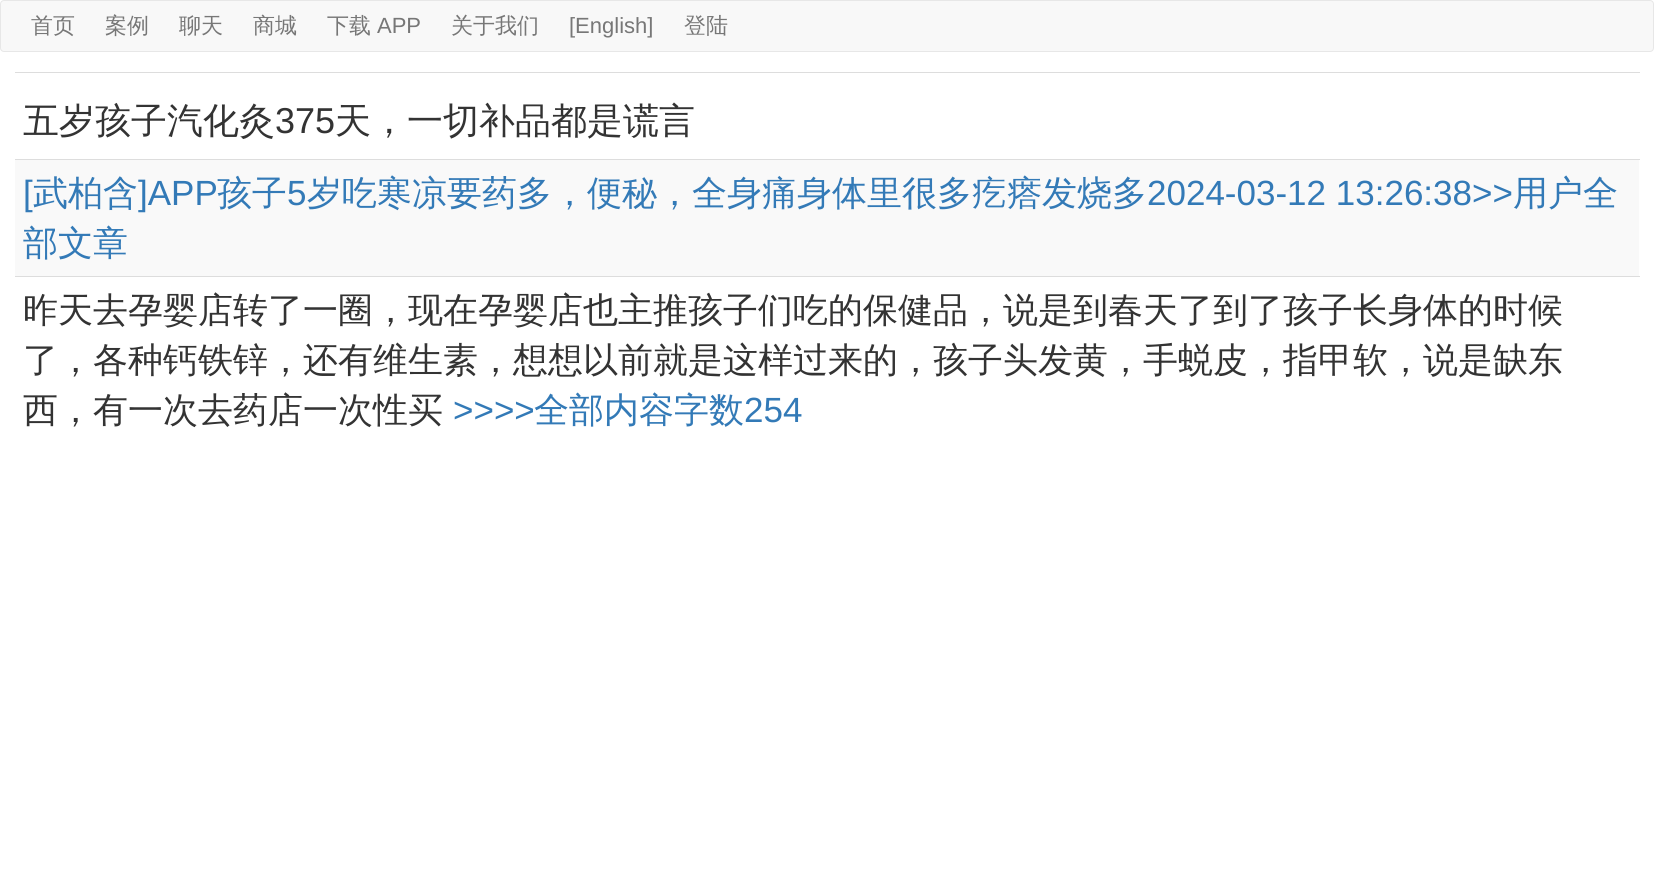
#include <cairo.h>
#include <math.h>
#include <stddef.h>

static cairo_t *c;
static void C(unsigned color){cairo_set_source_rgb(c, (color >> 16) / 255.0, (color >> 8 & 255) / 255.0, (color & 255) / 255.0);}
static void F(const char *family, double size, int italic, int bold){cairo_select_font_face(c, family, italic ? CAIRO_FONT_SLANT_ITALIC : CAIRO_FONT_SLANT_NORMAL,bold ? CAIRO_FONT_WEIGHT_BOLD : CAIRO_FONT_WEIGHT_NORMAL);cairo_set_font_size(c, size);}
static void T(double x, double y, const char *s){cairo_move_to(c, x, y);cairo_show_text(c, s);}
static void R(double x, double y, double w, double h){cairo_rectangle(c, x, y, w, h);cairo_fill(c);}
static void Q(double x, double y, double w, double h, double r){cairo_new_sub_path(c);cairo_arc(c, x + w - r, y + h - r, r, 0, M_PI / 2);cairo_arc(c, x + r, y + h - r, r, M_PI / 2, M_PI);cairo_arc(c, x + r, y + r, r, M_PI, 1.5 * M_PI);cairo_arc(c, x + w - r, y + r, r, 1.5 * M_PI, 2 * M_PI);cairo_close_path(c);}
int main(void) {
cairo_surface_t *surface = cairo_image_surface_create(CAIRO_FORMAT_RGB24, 1654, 874);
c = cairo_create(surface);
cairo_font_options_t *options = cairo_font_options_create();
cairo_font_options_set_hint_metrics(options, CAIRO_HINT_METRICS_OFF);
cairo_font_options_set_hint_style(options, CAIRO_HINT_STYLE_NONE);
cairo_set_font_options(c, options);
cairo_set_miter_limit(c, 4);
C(0xffffff);
cairo_paint(c);
C(0xf8f8f8);
Q(.5,.5,1653,51,3.5);
cairo_fill_preserve(c);
C(0xe7e7e7);
cairo_set_line_width(c,1);
cairo_stroke(c);
F("WenQuanYi Zen Hei Medium",22,0,0);
C(0x777777);
T(31,33,"首页");
T(105,33,"案例");
T(179,33,"聊天");
T(253,33,"商城");
T(327,33,"下载");
F("Liberation Sans",22,0,0);
T(377,33,"APP");
F("WenQuanYi Zen Hei Medium",22,0,0);
T(451,33,"关于我们");
F("Liberation Sans",22,0,0);
T(569,33,"[English]");
F("WenQuanYi Zen Hei Medium",22,0,0);
T(684,33,"登陆");
C(0xdddddd);
R(15,72,1625,1);
F("WenQuanYi Zen Hei Medium",36,0,0);
C(0x333333);
T(23,133,"五岁孩子汽化灸");
F("Liberation Sans",36,0,0);
T(275,133,"375");
F("WenQuanYi Zen Hei Medium",36,0,0);
T(335,133,"天，一切补品都是谎言");
C(0xf9f9f9);
R(15,160,1624,116);
C(0xdddddd);
R(15,159,1625,1);
F("Liberation Sans",35,0,0);
C(0x337ab7);
T(23,205,"[");
F("WenQuanYi Zen Hei Medium",35,0,0);
T(33,205,"武柏含");
F("Liberation Sans",35,0,0);
T(138,205,"]APP");
F("WenQuanYi Zen Hei Medium",35,0,0);
T(217,205,"孩子");
F("Liberation Sans",35,0,0);
T(287,205,"5");
F("WenQuanYi Zen Hei Medium",35,0,0);
T(307,205,"岁吃寒凉要药多，便秘，全身痛身体里很多疙瘩发烧多");
F("Liberation Sans",35,0,0);
T(1147,205,"2024-03-12 13:26:38>>");
F("WenQuanYi Zen Hei Medium",35,0,0);
T(1513,205,"用户全");
T(23,255,"部文章");
C(0xdddddd);
R(15,276,1625,1);
C(0x333333);
T(23,322,"昨天去孕婴店转了一圈，现在孕婴店也主推孩子们吃的保健品，说是到春天了到了孩子长身体的时候");
T(23,372,"了，各种钙铁锌，还有维生素，想想以前就是这样过来的，孩子头发黄，手蜕皮，指甲软，说是缺东");
T(23,422,"西，有一次去药店一次性买");
F("Liberation Sans",35,0,0);
C(0x337ab7);
T(453,422,">>>>");
F("WenQuanYi Zen Hei Medium",35,0,0);
T(534,422,"全部内容字数");
F("Liberation Sans",35,0,0);
T(744,422,"254");
cairo_surface_write_to_png(surface, "o.png");
cairo_font_options_destroy(options);
cairo_destroy(c);
cairo_surface_destroy(surface);
return 0;
}
